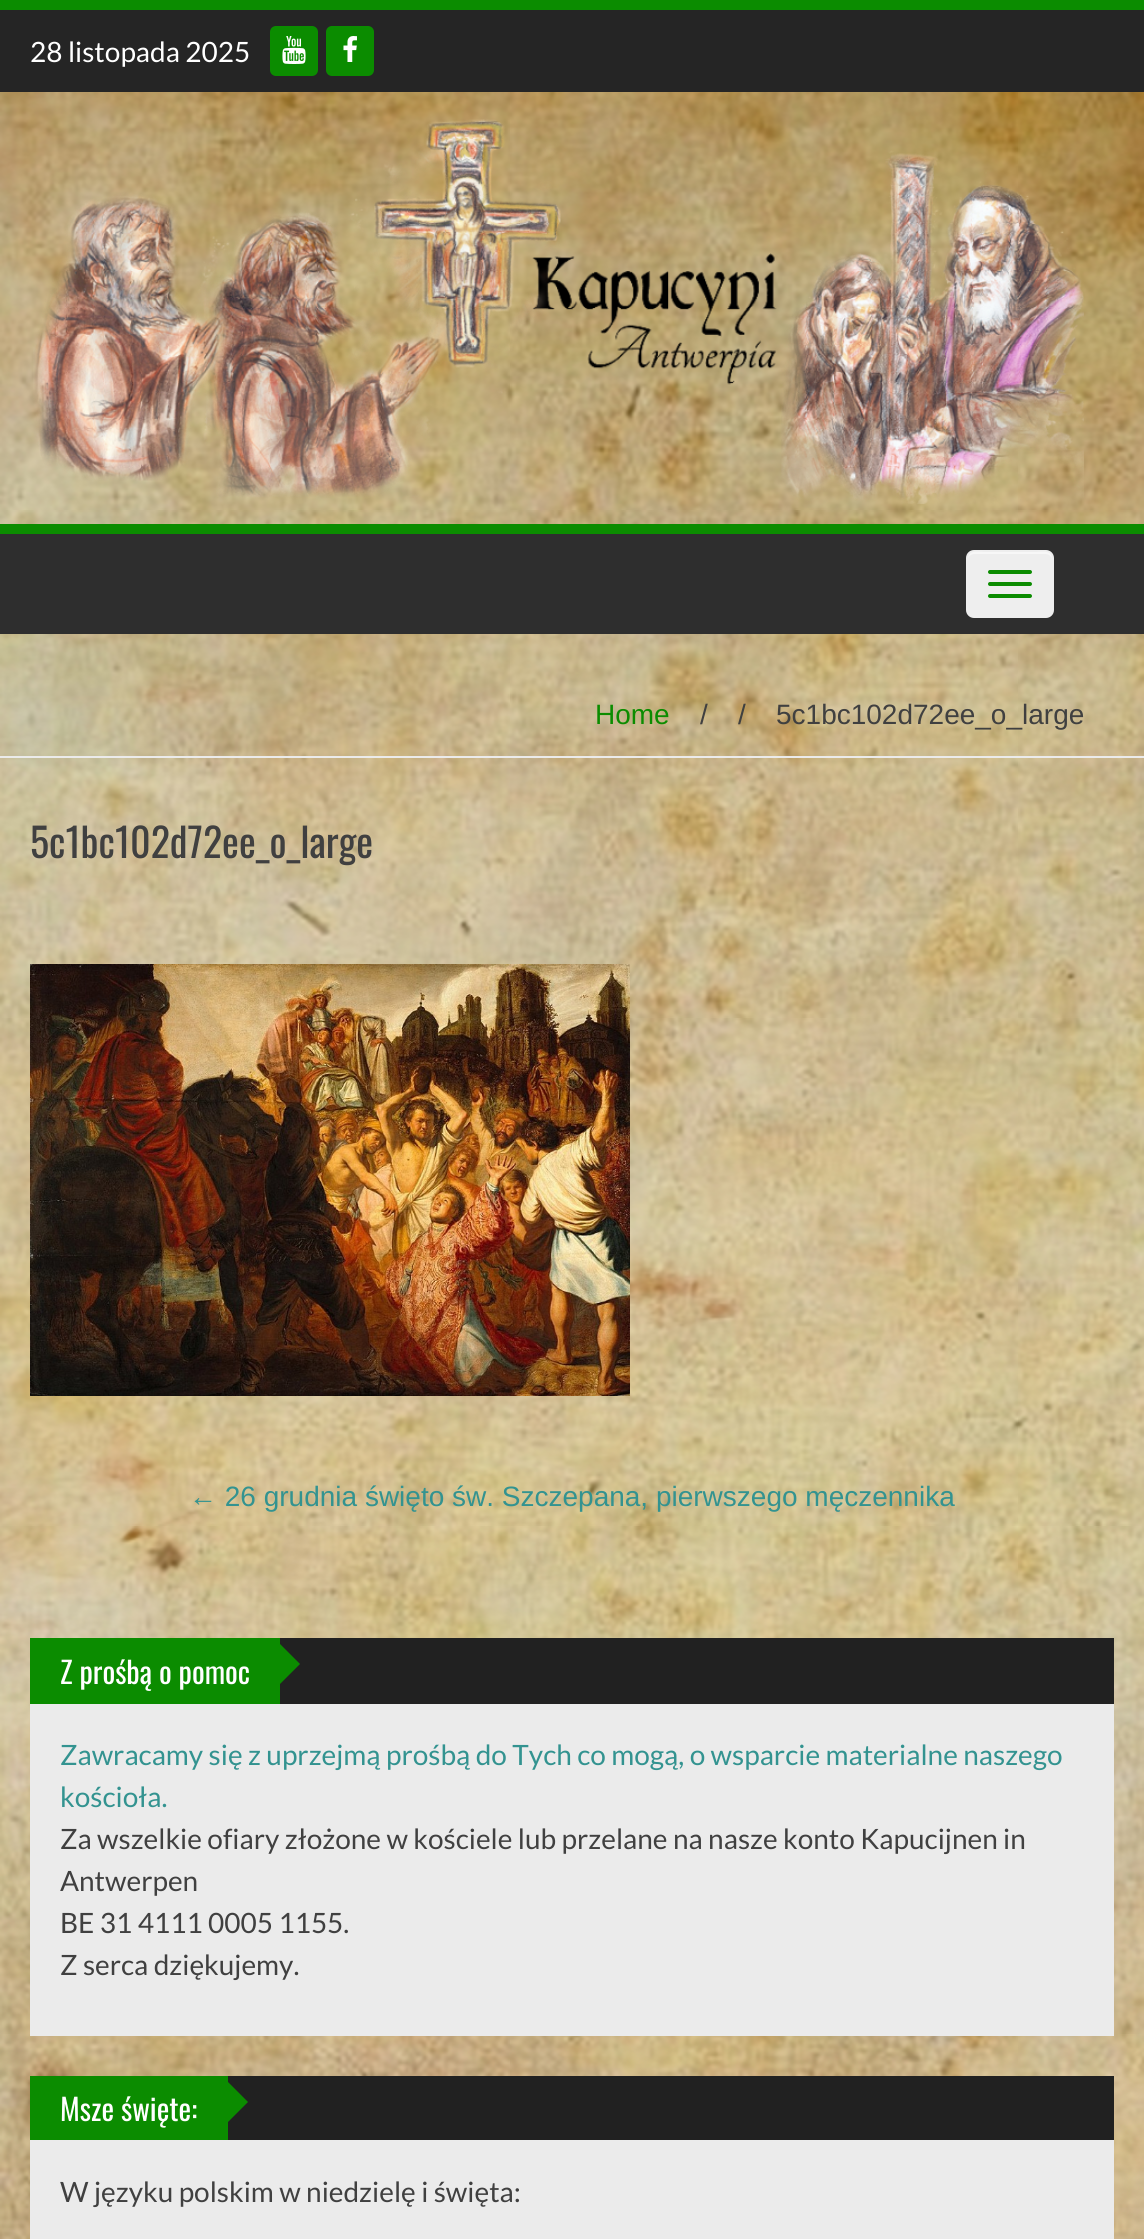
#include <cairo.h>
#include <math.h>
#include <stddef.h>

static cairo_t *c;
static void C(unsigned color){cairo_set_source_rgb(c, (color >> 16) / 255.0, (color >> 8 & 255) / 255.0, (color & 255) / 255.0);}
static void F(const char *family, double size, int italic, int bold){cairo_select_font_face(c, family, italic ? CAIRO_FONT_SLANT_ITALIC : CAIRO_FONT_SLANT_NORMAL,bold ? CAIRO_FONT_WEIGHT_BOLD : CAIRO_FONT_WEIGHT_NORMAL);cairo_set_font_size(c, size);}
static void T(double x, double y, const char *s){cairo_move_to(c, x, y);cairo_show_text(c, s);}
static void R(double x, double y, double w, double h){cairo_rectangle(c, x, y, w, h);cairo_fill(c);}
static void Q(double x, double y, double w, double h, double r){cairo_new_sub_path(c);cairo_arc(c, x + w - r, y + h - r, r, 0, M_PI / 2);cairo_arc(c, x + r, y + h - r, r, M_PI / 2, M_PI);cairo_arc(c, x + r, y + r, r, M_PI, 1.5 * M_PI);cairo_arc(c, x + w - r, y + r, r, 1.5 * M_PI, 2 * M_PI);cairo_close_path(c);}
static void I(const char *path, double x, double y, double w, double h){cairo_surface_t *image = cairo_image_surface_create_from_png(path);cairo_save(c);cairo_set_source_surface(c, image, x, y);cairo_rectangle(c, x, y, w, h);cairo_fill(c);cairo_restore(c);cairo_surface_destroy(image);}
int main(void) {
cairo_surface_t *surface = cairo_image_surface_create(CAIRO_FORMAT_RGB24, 1144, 2239);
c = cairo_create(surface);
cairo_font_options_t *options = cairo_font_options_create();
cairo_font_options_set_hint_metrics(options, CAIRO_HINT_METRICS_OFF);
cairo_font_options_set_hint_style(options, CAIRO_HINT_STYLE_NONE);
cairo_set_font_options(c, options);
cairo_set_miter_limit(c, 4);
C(0xffffff);
cairo_paint(c);
I("1.png",0,92,1144,2147);
C(0x252525);
R(0,10,1144,82);
C(0x0b8c00);
R(0,0,1144,10);
F("Lato",28,0,0);
C(0xffffff);
T(30,62,"28 listopada 2025");
C(0x0b8c00);
Q(270,26,48,50,6);
cairo_fill(c);
I("2.png",282,36,24,28);
Q(326,26,48,50,6);
cairo_fill(c);
I("3.png",343,36,14,26);
I("4.png",33,119,1051,385);
C(0x2e2e2e);
R(0,534,1144,100);
C(0x0b8c00);
R(0,524,1144,10);
C(0xeeeeee);
Q(966,550,88,68,8);
cairo_fill(c);
C(0xf7f7f7);
cairo_new_path(c);
cairo_move_to(c,974,554);
cairo_line_to(c,1046,554);
cairo_curve_to(c,1049,554,1052,557,1052,560);
cairo_curve_to(c,1052,549,1043,552,1034,552);
cairo_line_to(c,986,552);
cairo_curve_to(c,977,552,968,549,968,560);
cairo_curve_to(c,968,557,971,554,974,554);
cairo_close_path(c);
cairo_fill(c);
C(0x0b8c00);
Q(988,570,44,4,2);
cairo_fill(c);
Q(988,582,44,4,2);
cairo_fill(c);
Q(988,594,44,4,2);
cairo_fill(c);
C(0xebebeb);
R(0,756,1144,2);
F("Liberation Sans",28,0,0);
C(0x0b8c00);
T(595,724,"Home");
C(0x404040);
T(700,724,"/");
T(738,724,"/");
T(776,724,"5c1bc102d72ee_o_large");
F("Oswald",40,0,0);
T(30,858,"5c1bc102d72ee_o_large");
I("5.png",30,964,600,432);
F("Liberation Sans",28,0,0);
C(0x339390);
T(189,1506,"← 26 grudnia święto św. Szczepana, pierwszego męczennika");
C(0xebebeb);
R(30,1704,1084,332);
C(0x212121);
R(280,1638,834,66);
C(0x0b8c00);
R(30,1638,250,66);
F("Oswald",30,0,0);
C(0xffffff);
T(60,1684,"Z prośbą o pomoc");
C(0x0b8c00);
cairo_new_path(c);
cairo_move_to(c,280,1684);
cairo_line_to(c,280,1644);
cairo_line_to(c,300,1664);
cairo_close_path(c);
cairo_fill(c);
F("Lato",28,0,0);
C(0x339390);
T(60,1765,"Zawracamy się z uprzejmą prośbą do Tych co mogą, o wsparcie materialne naszego");
T(60,1807,"kościoła.");
C(0x404040);
T(60,1849,"Za wszelkie ofiary złożone w kościele lub przelane na nasze konto Kapucijnen in");
T(60,1891,"Antwerpen");
T(60,1933,"BE 31 4111 0005 1155.");
T(60,1975,"Z serca dziękujemy.");
C(0xebebeb);
R(30,2140,1084,99);
C(0x212121);
R(228,2076,886,64);
C(0x0b8c00);
R(30,2076,198,64);
F("Oswald",30,0,0);
C(0xffffff);
T(60,2121,"Msze święte:");
C(0x0b8c00);
cairo_new_path(c);
cairo_move_to(c,228,2122);
cairo_line_to(c,228,2082);
cairo_line_to(c,248,2102);
cairo_close_path(c);
cairo_fill(c);
F("Lato",28,0,0);
C(0x404040);
T(60,2202,"W języku polskim w niedzielę i święta:");
cairo_surface_write_to_png(surface, "o.png");
cairo_font_options_destroy(options);
cairo_destroy(c);
cairo_surface_destroy(surface);
return 0;
}
